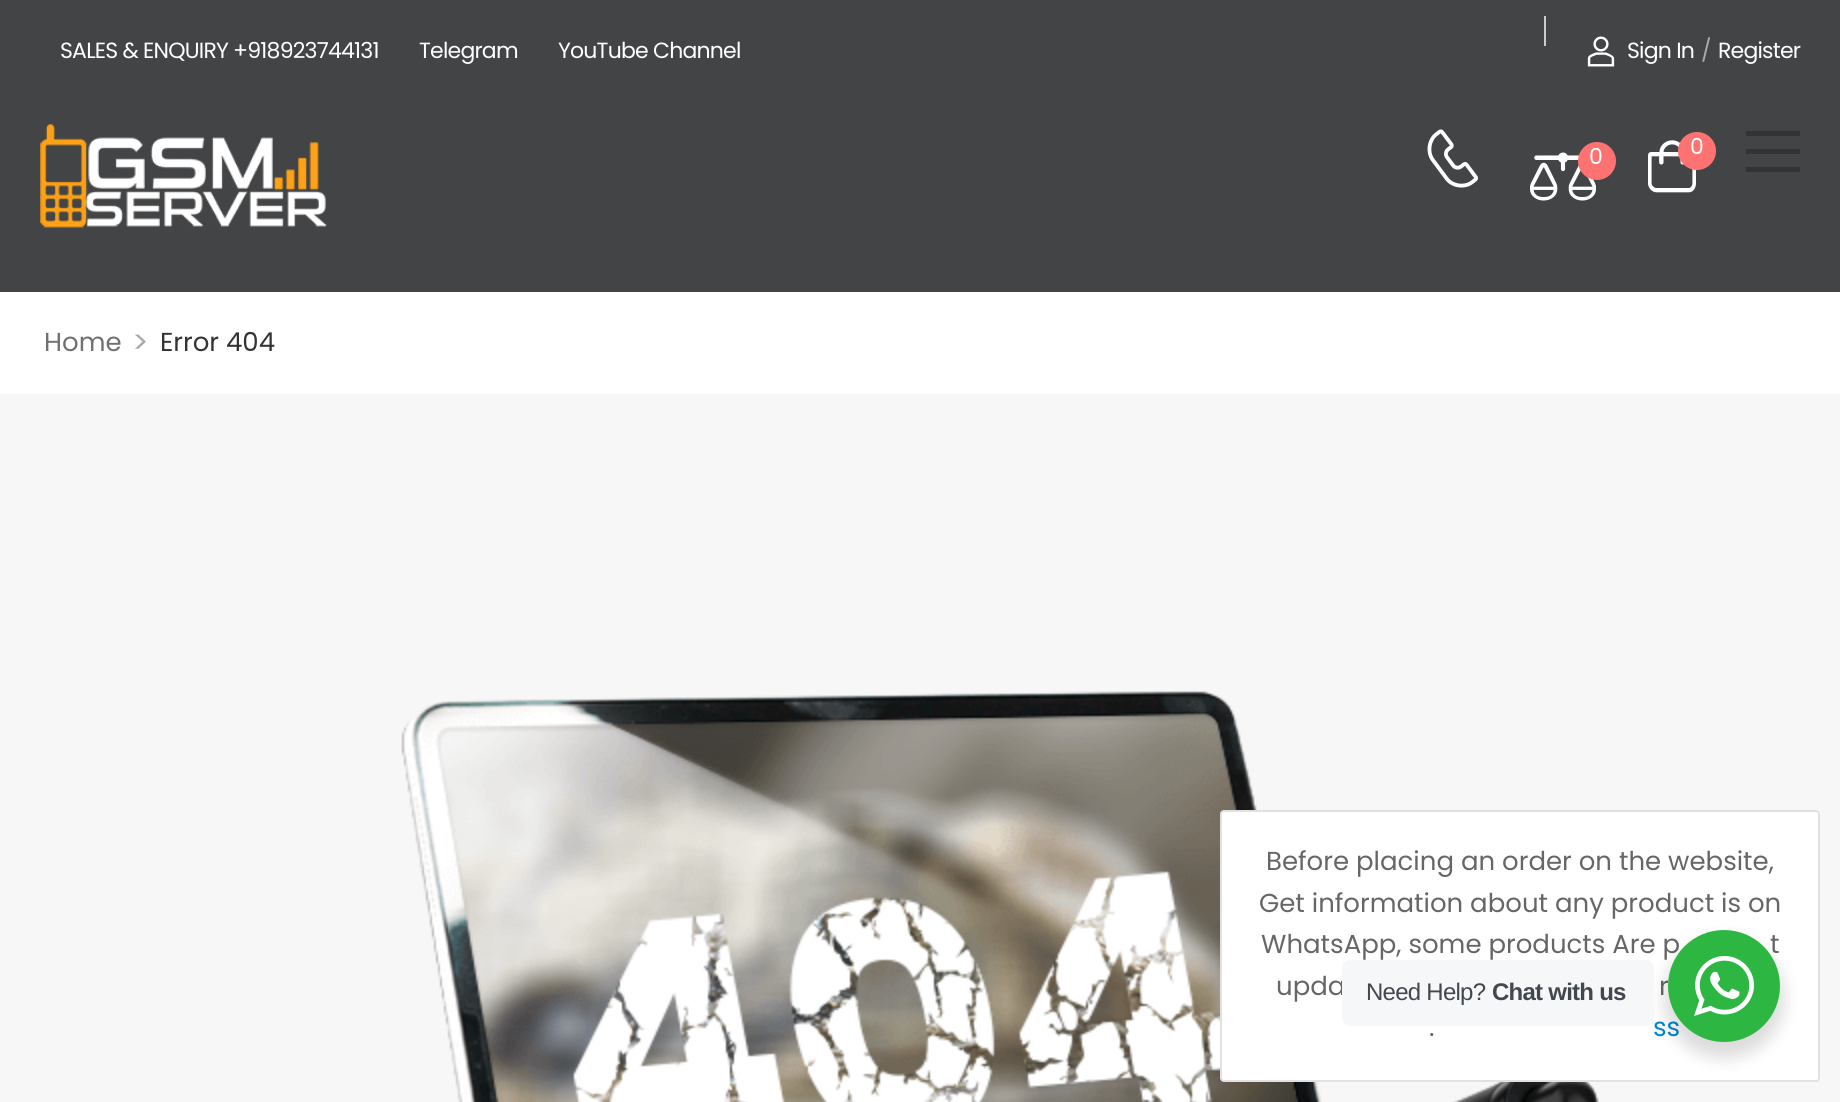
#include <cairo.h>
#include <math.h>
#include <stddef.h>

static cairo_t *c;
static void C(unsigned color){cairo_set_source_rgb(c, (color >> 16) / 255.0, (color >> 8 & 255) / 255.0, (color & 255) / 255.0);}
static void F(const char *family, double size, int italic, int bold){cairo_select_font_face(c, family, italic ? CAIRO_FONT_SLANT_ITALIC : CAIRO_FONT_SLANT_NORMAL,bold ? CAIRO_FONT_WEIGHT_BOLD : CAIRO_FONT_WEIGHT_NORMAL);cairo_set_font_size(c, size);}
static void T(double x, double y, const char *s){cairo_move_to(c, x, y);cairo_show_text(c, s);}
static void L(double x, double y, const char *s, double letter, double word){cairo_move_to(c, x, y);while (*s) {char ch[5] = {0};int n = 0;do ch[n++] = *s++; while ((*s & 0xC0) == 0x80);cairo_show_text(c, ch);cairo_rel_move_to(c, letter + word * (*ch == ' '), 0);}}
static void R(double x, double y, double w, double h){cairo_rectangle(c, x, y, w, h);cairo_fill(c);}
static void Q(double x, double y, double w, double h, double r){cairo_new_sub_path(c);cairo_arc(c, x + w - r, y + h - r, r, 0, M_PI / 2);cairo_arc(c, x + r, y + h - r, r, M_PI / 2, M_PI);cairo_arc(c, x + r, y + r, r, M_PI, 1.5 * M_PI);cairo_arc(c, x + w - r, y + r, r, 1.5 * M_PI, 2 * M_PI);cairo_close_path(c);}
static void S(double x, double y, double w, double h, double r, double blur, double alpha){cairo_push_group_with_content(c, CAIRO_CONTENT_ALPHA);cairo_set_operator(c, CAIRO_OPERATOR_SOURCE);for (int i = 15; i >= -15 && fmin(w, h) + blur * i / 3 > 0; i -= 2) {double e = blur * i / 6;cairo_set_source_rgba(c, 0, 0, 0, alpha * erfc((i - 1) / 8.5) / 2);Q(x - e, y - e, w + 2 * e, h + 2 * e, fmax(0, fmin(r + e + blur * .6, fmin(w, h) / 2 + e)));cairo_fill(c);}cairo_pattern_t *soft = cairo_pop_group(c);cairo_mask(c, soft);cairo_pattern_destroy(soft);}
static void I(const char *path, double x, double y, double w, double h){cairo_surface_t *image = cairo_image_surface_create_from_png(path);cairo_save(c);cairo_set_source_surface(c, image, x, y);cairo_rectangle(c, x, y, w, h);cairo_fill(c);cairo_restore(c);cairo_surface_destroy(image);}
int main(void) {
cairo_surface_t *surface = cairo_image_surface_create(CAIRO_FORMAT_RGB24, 1840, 1102);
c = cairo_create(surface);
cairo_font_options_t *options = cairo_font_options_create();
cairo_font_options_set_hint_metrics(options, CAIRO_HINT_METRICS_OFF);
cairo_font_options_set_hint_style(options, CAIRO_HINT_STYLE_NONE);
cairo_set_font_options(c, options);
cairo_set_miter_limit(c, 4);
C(0xffffff);
cairo_paint(c);
C(0x434446);
R(0,0,1840,292);
F("Poppins",22,0,0);
C(0xffffff);
L(60,58,"SALES & ENQUIRY +918923744131",-.8,0);
L(419,58,"Telegram",-.8,0);
L(558,58,"YouTube Channel",-.8,0);
C(0xcccccc);
R(1544,16,2,30);
I("1.png",1587,36,28,31);
C(0xffffff);
L(1627,58,"Sign In",-.8,0);
C(0xaaaaaa);
L(1701,58,"/",-.8,0);
C(0xffffff);
L(1718,58,"Register",-.8,0);
I("2.png",40,124,287,104);
I("3.png",1427,129,51,59);
I("4.png",1530,152,66,49);
C(0xff7272);
cairo_arc(c,1597,161,19,0,2 * M_PI);
cairo_fill(c);
C(0xffffff);
L(1589,164,"0",-.8,0);
I("5.png",1648,140,48,53);
C(0xff7272);
cairo_arc(c,1697,151,19,0,2 * M_PI);
cairo_fill(c);
C(0xffffff);
L(1690,154,"0",-.8,0);
C(0x333333);
cairo_new_path(c);
cairo_move_to(c,1746,131);
cairo_line_to(c,1746,136);
cairo_line_to(c,1800,136);
cairo_line_to(c,1800,131);
cairo_close_path(c);
cairo_move_to(c,1746,149);
cairo_line_to(c,1746,154);
cairo_line_to(c,1800,154);
cairo_line_to(c,1800,149);
cairo_close_path(c);
cairo_move_to(c,1746,167);
cairo_line_to(c,1746,172);
cairo_line_to(c,1800,172);
cairo_line_to(c,1800,167);
cairo_close_path(c);
cairo_fill(c);
F("Poppins",26,0,0);
C(0x707070);
T(44,351,"Home");
F("Poppins",31,0,0);
C(0xaaaaaa);
T(132,353,">");
F("Poppins",26,0,0);
C(0x333333);
T(160,351,"Error 404");
C(0xf7f7f7);
R(0,394,1840,708);
I("6.png",401,691,1198,411);
C(0xffffff);
Q(1221,811,598,270,3);
cairo_fill_preserve(c);
C(0xe1e1e1);
cairo_stroke(c);
C(0x666666);
T(1266,870,"Before placing an order on the website,");
T(1259,912,"Get information about any product is on");
T(1261,953,"WhatsApp, some products Are p");
T(1770,953,"t");
T(1276,995,"upda");
T(1659,995,"r");
T(1429,1036,".");
C(0x0088cc);
T(1653,1036,"ss");
C(0x000000);
S(1664,938,120,120,60,8,.14);
C(0xf5f7f9);
Q(1342,960,312,66,8);
cairo_fill(c);
F("Liberation Sans",24,0,0);
C(0x43474e);
L(1366,1000,"Need Help?",-.75,0);
F("Liberation Sans",24,0,1);
L(1492,1000,"Chat with us",-.75,0);
C(0x2db742);
cairo_new_path(c);
cairo_arc(c,1724,986,56,0,2 * M_PI);
cairo_fill(c);
I("7.png",1694,956,60,60);
cairo_surface_write_to_png(surface, "o.png");
cairo_font_options_destroy(options);
cairo_destroy(c);
cairo_surface_destroy(surface);
return 0;
}
